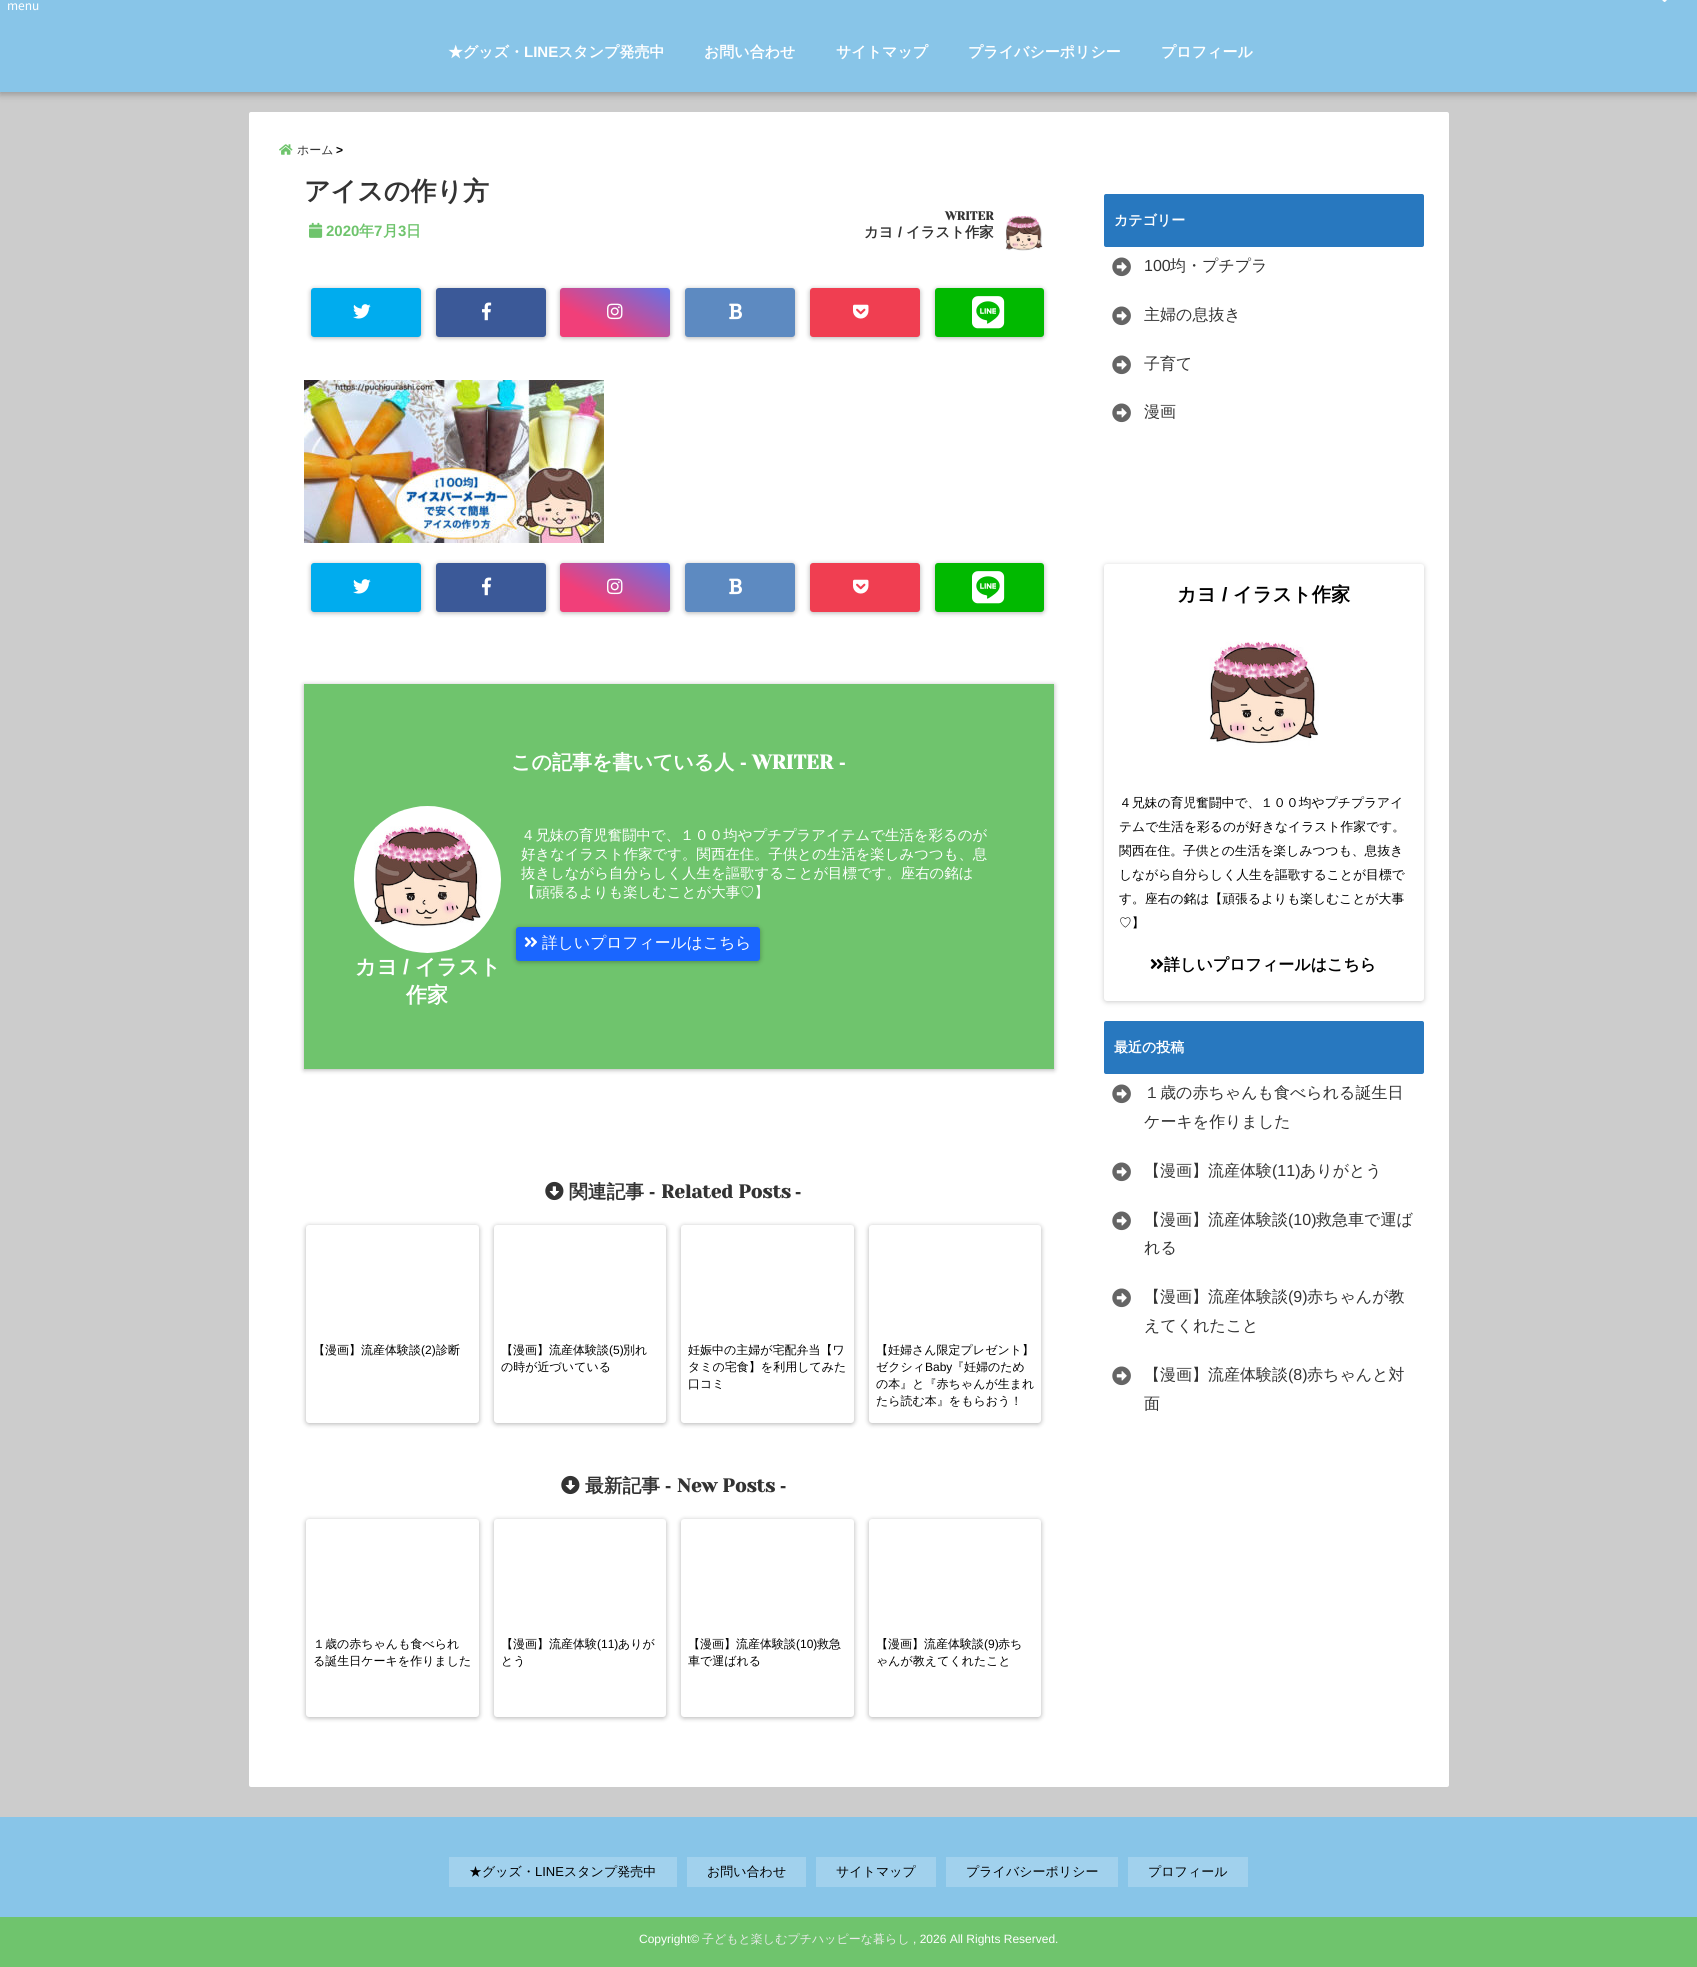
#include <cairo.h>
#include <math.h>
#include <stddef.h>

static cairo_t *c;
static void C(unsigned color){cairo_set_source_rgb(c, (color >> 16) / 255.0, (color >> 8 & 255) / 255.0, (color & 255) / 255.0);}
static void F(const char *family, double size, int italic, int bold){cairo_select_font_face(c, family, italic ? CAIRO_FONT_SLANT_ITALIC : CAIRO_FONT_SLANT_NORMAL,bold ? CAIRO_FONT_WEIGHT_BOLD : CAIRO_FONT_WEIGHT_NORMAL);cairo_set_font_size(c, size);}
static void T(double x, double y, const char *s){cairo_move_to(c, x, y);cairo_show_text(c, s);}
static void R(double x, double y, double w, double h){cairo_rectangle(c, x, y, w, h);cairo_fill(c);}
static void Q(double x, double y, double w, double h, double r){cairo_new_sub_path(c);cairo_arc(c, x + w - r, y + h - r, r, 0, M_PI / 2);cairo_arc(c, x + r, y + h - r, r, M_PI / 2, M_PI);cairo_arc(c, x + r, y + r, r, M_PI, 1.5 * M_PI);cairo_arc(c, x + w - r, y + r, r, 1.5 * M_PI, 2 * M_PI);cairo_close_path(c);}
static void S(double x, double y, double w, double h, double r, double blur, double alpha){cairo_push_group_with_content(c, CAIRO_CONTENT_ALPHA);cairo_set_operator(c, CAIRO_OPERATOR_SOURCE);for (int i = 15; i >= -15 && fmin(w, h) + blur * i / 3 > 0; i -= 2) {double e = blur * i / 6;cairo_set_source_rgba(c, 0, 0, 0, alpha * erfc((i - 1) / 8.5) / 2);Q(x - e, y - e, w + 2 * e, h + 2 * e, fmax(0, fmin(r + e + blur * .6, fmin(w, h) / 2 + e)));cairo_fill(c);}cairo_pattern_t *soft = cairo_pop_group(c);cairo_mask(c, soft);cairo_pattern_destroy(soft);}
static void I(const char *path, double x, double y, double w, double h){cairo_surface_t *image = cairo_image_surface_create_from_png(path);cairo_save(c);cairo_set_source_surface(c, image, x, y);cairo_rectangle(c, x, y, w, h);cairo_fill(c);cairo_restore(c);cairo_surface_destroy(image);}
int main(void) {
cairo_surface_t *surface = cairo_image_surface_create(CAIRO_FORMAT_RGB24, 1697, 1967);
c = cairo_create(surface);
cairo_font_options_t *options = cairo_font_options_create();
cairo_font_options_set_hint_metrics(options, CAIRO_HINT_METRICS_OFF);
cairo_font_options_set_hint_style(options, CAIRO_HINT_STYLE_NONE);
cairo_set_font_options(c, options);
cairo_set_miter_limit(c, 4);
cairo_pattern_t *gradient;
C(0xcccccc);
cairo_paint(c);
C(0x000000);
S(0,-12,1697,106,0,4,.3);
C(0x88c5e8);
R(0,0,1697,92);
I("1.png",1662,0,5,2);
F("Noto Sans JP",12,0,0);
C(0xffffff);
T(7,10,"menu");
F("WenQuanYi Zen Hei",15,0,1);
T(448,57,"★グッズ・");
F("Liberation Sans",15,0,1);
T(524,57,"LINE");
F("WenQuanYi Zen Hei",15,0,1);
T(558,57,"スタンプ発売中");
T(704,57,"お問い合わせ");
T(836,57,"サイトマップ");
T(968,57,"プライバシーポリシー");
T(1161,57,"プロフィール");
Q(249,112,1200,1675,2);
cairo_fill(c);
I("2.png",279,144,14,11);
F("WenQuanYi Zen Hei Medium",12,0,0);
C(0x333333);
T(297,154,"ホーム");
F("Liberation Sans",12,0,1);
C(0x000000);
T(336,154,">");
F("WenQuanYi Zen Hei",26,0,1);
C(0x333333);
T(304,200,"アイスの作り方");
I("3.png",309,222,14,16);
F("Liberation Sans",15,0,1);
C(0x6fc46d);
T(326,236,"2020");
F("WenQuanYi Zen Hei",15,0,1);
T(359,236,"年");
F("Liberation Sans",15,0,1);
T(374,236,"7");
F("WenQuanYi Zen Hei",15,0,1);
T(383,236,"月");
F("Liberation Sans",15,0,1);
T(398,236,"3");
F("WenQuanYi Zen Hei",15,0,1);
T(406,236,"日");
F("Yeseva One",12,0,1);
C(0x333333);
T(945,220,"WRITER");
I("4.png",1005,216,38,35);
F("WenQuanYi Zen Hei",14.4,0,1);
T(864,237,"カヨ");
F("Liberation Sans",14.4,0,1);
T(898,237,"/");
F("WenQuanYi Zen Hei",14.4,0,1);
T(906,237,"イラスト作家");
C(0x000000);
S(311,289,110,49,3,2.5,.3);
C(0x00acee);
Q(311,288,110,49,3);
cairo_fill(c);
I("5.png",353,304,18,15);
C(0x000000);
S(436,289,110,49,3,2.5,.3);
C(0x3b5998);
Q(436,288,110,49,3);
cairo_fill(c);
I("6.png",482,302,10,19);
C(0x000000);
S(560,289,110,49,3,2.5,.3);
gradient = cairo_pattern_create_linear(591,355,646,258);
cairo_pattern_add_color_stop_rgba(gradient,.26,0.945,0.247,0.475,1);
cairo_pattern_add_color_stop_rgba(gradient,1,0.259,0.494,1,1);
cairo_set_source(c,gradient);
cairo_pattern_destroy(gradient);
Q(560,288,110,49,3);
cairo_fill(c);
I("7.png",607,303,16,17);
C(0x000000);
S(685,289,110,49,3,2.5,.3);
C(0x5d8ac1);
Q(685,288,110,49,3);
cairo_fill(c);
I("8.png",729,303,13,17);
C(0x000000);
S(810,289,110,49,3,2.5,.3);
C(0xf03e51);
Q(810,288,110,49,3);
cairo_fill(c);
I("9.png",853,304,16,15);
C(0x000000);
S(935,289,109,49,3,2.5,.3);
C(0x01b900);
Q(935,288,109,49,3);
cairo_fill(c);
I("10.png",972,296,33,33);
I("11.png",304,380,300,163);
C(0x000000);
S(311,564,110,49,3,2.5,.3);
C(0x00acee);
Q(311,563,110,49,3);
cairo_fill(c);
I("5.png",353,579,18,15);
C(0x000000);
S(436,564,110,49,3,2.5,.3);
C(0x3b5998);
Q(436,563,110,49,3);
cairo_fill(c);
I("6.png",482,577,10,19);
C(0x000000);
S(560,564,110,49,3,2.5,.3);
gradient = cairo_pattern_create_linear(591,630,646,533);
cairo_pattern_add_color_stop_rgba(gradient,.26,0.945,0.247,0.475,1);
cairo_pattern_add_color_stop_rgba(gradient,1,0.259,0.494,1,1);
cairo_set_source(c,gradient);
cairo_pattern_destroy(gradient);
Q(560,563,110,49,3);
cairo_fill(c);
I("7.png",607,578,16,17);
C(0x000000);
S(685,564,110,49,3,2.5,.3);
C(0x5d8ac1);
Q(685,563,110,49,3);
cairo_fill(c);
I("8.png",729,578,13,17);
C(0x000000);
S(810,564,110,49,3,2.5,.3);
C(0xf03e51);
Q(810,563,110,49,3);
cairo_fill(c);
I("9.png",853,579,16,15);
C(0x000000);
S(935,564,109,49,3,2.5,.3);
C(0x01b900);
Q(935,563,109,49,3);
cairo_fill(c);
I("10.png",972,571,33,33);
C(0x000000);
S(304,685,750,385,0,2.5,.3);
C(0x6fc46d);
R(304,684,750,385);
F("WenQuanYi Zen Hei",20,0,1);
C(0xffffff);
T(511,769,"この記事を書いている人");
F("Liberation Sans",20,0,1);
T(740,769,"-");
F("Yeseva One",20,0,1);
T(752,769,"WRITER");
F("Liberation Sans",20,0,1);
T(839,769,"-");
F("WenQuanYi Zen Hei Medium",14.4,0,0);
T(521,840,"４兄妹の育児奮闘中で、１００均やプチプラアイテムで生活を彩るのが");
T(521,859,"好きなイラスト作家です。関西在住。子供との生活を楽しみつつも、息");
T(521,878,"抜きしながら自分らしく人生を謳歌することが目標です。座右の銘は");
T(521,897,"【頑張るよりも楽しむことが大事♡】");
C(0x000000);
S(516,928,244,34,3,2.5,.3);
C(0x1a66ff);
Q(516,927,244,34,3);
cairo_fill(c);
I("12.png",524,937,13,10);
F("WenQuanYi Zen Hei Medium",15.8,0,0);
C(0xffffff);
T(542,948,"詳しいプロフィールはこちら");
I("13.png",354,806,147,147);
F("WenQuanYi Zen Hei",21,0,1);
T(355,974,"カヨ");
F("Liberation Sans",21,0,1);
T(403,974,"/");
F("WenQuanYi Zen Hei",21,0,1);
T(415,974,"イラスト");
T(406,1002,"作家");
I("14.png",545,1181,19,20);
F("WenQuanYi Zen Hei",18.75,0,1);
C(0x333333);
T(569,1198,"関連記事");
F("Liberation Sans",18.75,0,1);
T(649,1198,"-");
F("Yeseva One",18.75,0,1);
T(661,1198,"Related Posts");
F("Liberation Sans",18.75,0,1);
T(795,1198,"-");
C(0x000000);
S(306,1226,173,198,3,2.5,.3);
C(0xffffff);
Q(306,1225,173,198,3);
cairo_fill(c);
F("WenQuanYi Zen Hei Medium",12,0,0);
C(0x000000);
T(313,1354,"【漫画】流産体験談");
F("Liberation Sans",12,0,0);
T(421,1354,"(2)");
F("WenQuanYi Zen Hei Medium",12,0,0);
T(436,1354,"診断");
C(0x000000);
S(494,1226,172,198,3,2.5,.3);
C(0xffffff);
Q(494,1225,172,198,3);
cairo_fill(c);
C(0x000000);
T(501,1354,"【漫画】流産体験談");
F("Liberation Sans",12,0,0);
T(609,1354,"(5)");
F("WenQuanYi Zen Hei Medium",12,0,0);
T(623,1354,"別れ");
T(501,1371,"の時が近づいている");
C(0x000000);
S(681,1226,173,198,3,2.5,.3);
C(0xffffff);
Q(681,1225,173,198,3);
cairo_fill(c);
C(0x000000);
T(688,1354,"妊娠中の主婦が宅配弁当【ワ");
T(688,1371,"タミの宅食】を利用してみた");
T(688,1388,"口コミ");
C(0x000000);
S(869,1226,172,198,3,2.5,.3);
C(0xffffff);
Q(869,1225,172,198,3);
cairo_fill(c);
C(0x000000);
T(876,1354,"【妊婦さん限定プレゼント】");
T(876,1371,"ゼクシィ");
F("Liberation Sans",12,0,0);
T(925,1371,"Baby");
F("WenQuanYi Zen Hei Medium",12,0,0);
T(952,1371,"『妊婦のため");
T(876,1388,"の本』と『赤ちゃんが生まれ");
T(876,1405,"たら読む本』をもらおう！");
I("14.png",561,1475,19,20);
F("WenQuanYi Zen Hei",18.75,0,1);
C(0x333333);
T(585,1492,"最新記事");
F("Liberation Sans",18.75,0,1);
T(665,1492,"-");
F("Yeseva One",18.75,0,1);
T(677,1492,"New Posts");
F("Liberation Sans",18.75,0,1);
T(780,1492,"-");
C(0x000000);
S(306,1520,173,198,3,2.5,.3);
C(0xffffff);
Q(306,1519,173,198,3);
cairo_fill(c);
F("WenQuanYi Zen Hei Medium",12,0,0);
C(0x000000);
T(313,1648,"１歳の赤ちゃんも食べられ");
T(313,1665,"る誕生日ケーキを作りました");
C(0x000000);
S(494,1520,172,198,3,2.5,.3);
C(0xffffff);
Q(494,1519,172,198,3);
cairo_fill(c);
C(0x000000);
T(501,1648,"【漫画】流産体験");
F("Liberation Sans",12,0,0);
T(597,1648,"(11)");
F("WenQuanYi Zen Hei Medium",12,0,0);
T(618,1648,"ありが");
T(501,1665,"とう");
C(0x000000);
S(681,1520,173,198,3,2.5,.3);
C(0xffffff);
Q(681,1519,173,198,3);
cairo_fill(c);
C(0x000000);
T(688,1648,"【漫画】流産体験談");
F("Liberation Sans",12,0,0);
T(796,1648,"(10)");
F("WenQuanYi Zen Hei Medium",12,0,0);
T(817,1648,"救急");
T(688,1665,"車で運ばれる");
C(0x000000);
S(869,1520,172,198,3,2.5,.3);
C(0xffffff);
Q(869,1519,172,198,3);
cairo_fill(c);
C(0x000000);
T(876,1648,"【漫画】流産体験談");
F("Liberation Sans",12,0,0);
T(984,1648,"(9)");
F("WenQuanYi Zen Hei Medium",12,0,0);
T(998,1648,"赤ち");
T(876,1665,"ゃんが教えてくれたこと");
C(0x2878bf);
Q(1104,194,320,53,2);
cairo_fill(c);
F("WenQuanYi Zen Hei",14,0,1);
C(0xffffff);
T(1114,225,"カテゴリー");
I("15.png",1112,257,19,20);
F("Liberation Sans",16,0,0);
C(0x333333);
T(1144,271,"100");
F("WenQuanYi Zen Hei Medium",16,0,0);
T(1170,271,"均・プチプラ");
I("15.png",1112,306,19,20);
T(1144,320,"主婦の息抜き");
I("15.png",1112,355,19,20);
T(1144,369,"子育て");
I("15.png",1112,403,19,20);
T(1144,417,"漫画");
C(0xcccccc);
S(1104,565,320,437,3,2.5,1);
C(0xffffff);
Q(1104,564,320,437,3);
cairo_fill(c);
F("WenQuanYi Zen Hei",19.25,0,1);
C(0x000000);
T(1177,601,"カヨ");
F("Liberation Sans",19.25,0,1);
T(1222,601,"/");
F("WenQuanYi Zen Hei",19.25,0,1);
T(1233,601,"イラスト作家");
I("16.png",1209,641,110,105);
F("WenQuanYi Zen Hei Medium",12.8,0,0);
T(1119,807,"４兄妹の育児奮闘中で、１００均やプチプラアイ");
T(1119,831,"テムで生活を彩るのが好きなイラスト作家です。");
T(1119,855,"関西在住。子供との生活を楽しみつつも、息抜き");
T(1119,879,"しながら自分らしく人生を謳歌することが目標で");
T(1119,903,"す。座右の銘は【頑張るよりも楽しむことが大事");
T(1119,927,"♡】");
I("17.png",1150,959,14,10);
F("WenQuanYi Zen Hei",16,0,1);
T(1164,970,"詳しいプロフィールはこちら");
C(0x2878bf);
Q(1104,1021,320,53,2);
cairo_fill(c);
F("WenQuanYi Zen Hei",14,0,1);
C(0xffffff);
T(1114,1052,"最近の投稿");
I("15.png",1112,1084,19,20);
F("WenQuanYi Zen Hei Medium",16,0,0);
C(0x333333);
T(1144,1098,"１歳の赤ちゃんも食べられる誕生日");
T(1144,1127,"ケーキを作りました");
I("15.png",1112,1162,19,20);
T(1144,1176,"【漫画】流産体験");
F("Liberation Sans",16,0,0);
T(1272,1176,"(11)");
F("WenQuanYi Zen Hei Medium",16,0,0);
T(1300,1176,"ありがとう");
I("15.png",1112,1211,19,20);
T(1144,1225,"【漫画】流産体験談");
F("Liberation Sans",16,0,0);
T(1288,1225,"(10)");
F("WenQuanYi Zen Hei Medium",16,0,0);
T(1316,1225,"救急車で運ば");
T(1144,1253,"れる");
I("15.png",1112,1288,19,20);
T(1144,1302,"【漫画】流産体験談");
F("Liberation Sans",16,0,0);
T(1288,1302,"(9)");
F("WenQuanYi Zen Hei Medium",16,0,0);
T(1307,1302,"赤ちゃんが教");
T(1144,1331,"えてくれたこと");
I("15.png",1112,1366,19,20);
T(1144,1380,"【漫画】流産体験談");
F("Liberation Sans",16,0,0);
T(1288,1380,"(8)");
F("WenQuanYi Zen Hei Medium",16,0,0);
T(1307,1380,"赤ちゃんと対");
T(1144,1409,"面");
C(0x88c5e8);
R(0,1817,1697,100);
C(0xa1d1ed);
R(449,1857,228,30);
F("WenQuanYi Zen Hei Medium",13,0,0);
C(0x000000);
T(469,1876,"★グッズ・");
F("Liberation Sans",13,0,0);
T(535,1876,"LINE");
F("WenQuanYi Zen Hei Medium",13,0,0);
T(564,1876,"スタンプ発売中");
C(0xa1d1ed);
R(687,1857,119,30);
C(0x000000);
T(707,1876,"お問い合わせ");
C(0xa1d1ed);
R(816,1857,120,30);
C(0x000000);
T(836,1876,"サイトマップ");
C(0xa1d1ed);
R(946,1857,172,30);
C(0x000000);
T(966,1876,"プライバシーポリシー");
C(0xa1d1ed);
R(1128,1857,120,30);
C(0x000000);
T(1148,1876,"プロフィール");
C(0x6fc46d);
R(0,1917,1697,50);
F("Liberation Sans",12,0,0);
C(0xffffff);
T(639,1943,"Copyright©");
F("WenQuanYi Zen Hei Medium",12,0,0);
C(0xeaeaea);
T(702,1943,"子どもと楽しむプチハッピーな暮らし");
F("Liberation Sans",12,0,0);
C(0xffffff);
T(913,1943,", 2026 All Rights Reserved.");
cairo_surface_write_to_png(surface, "o.png");
cairo_font_options_destroy(options);
cairo_destroy(c);
cairo_surface_destroy(surface);
return 0;
}
